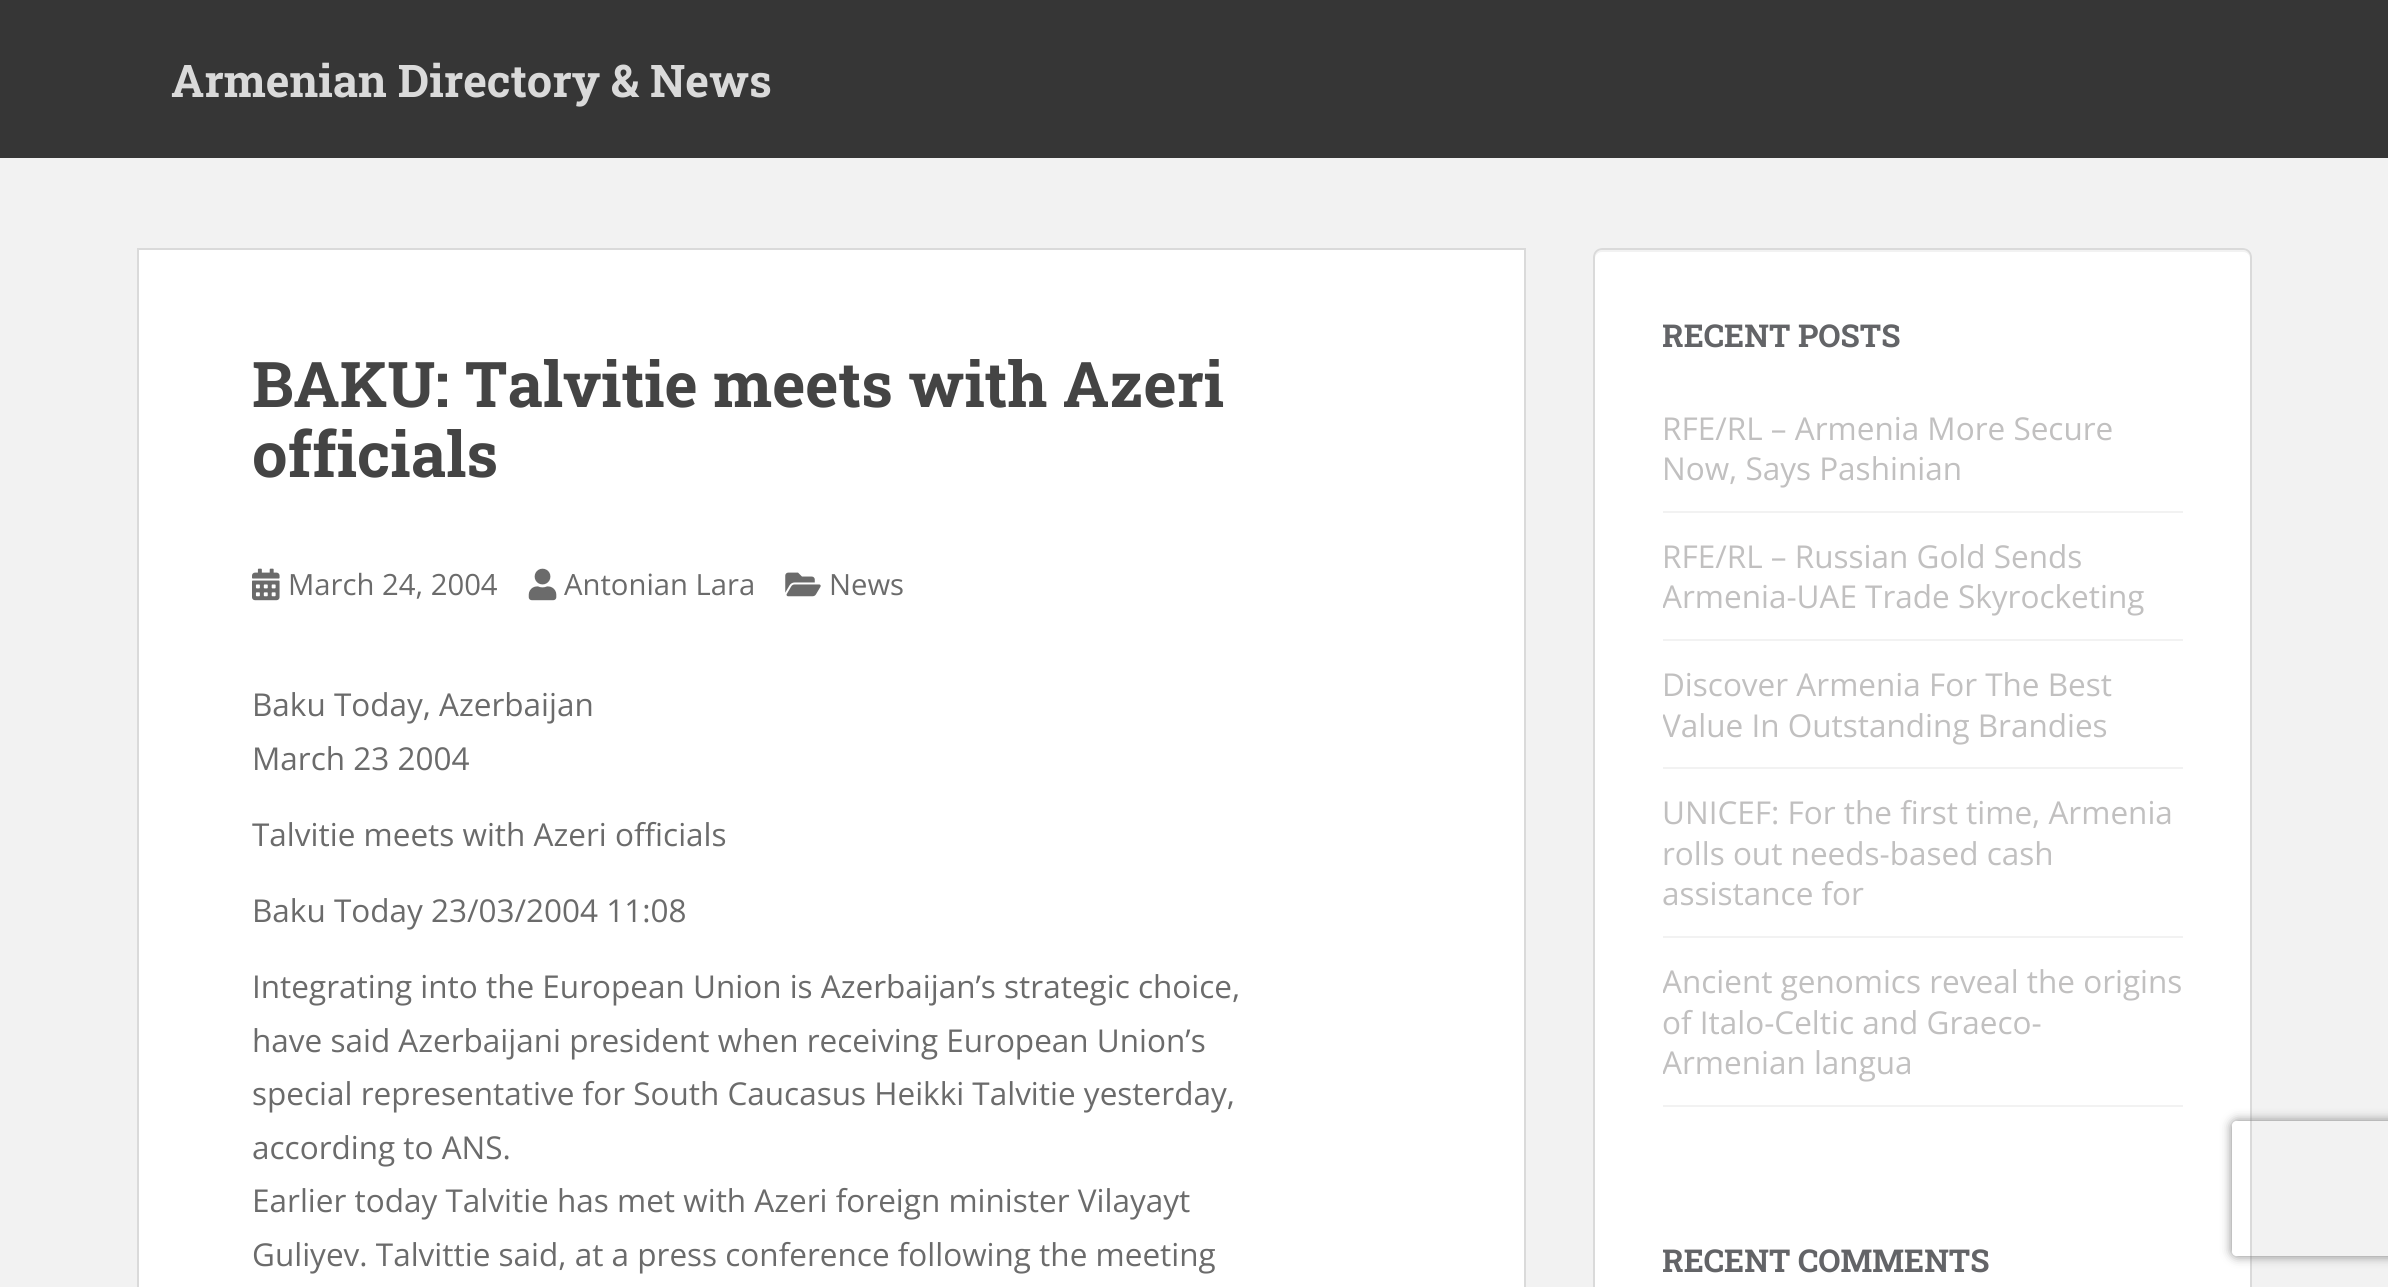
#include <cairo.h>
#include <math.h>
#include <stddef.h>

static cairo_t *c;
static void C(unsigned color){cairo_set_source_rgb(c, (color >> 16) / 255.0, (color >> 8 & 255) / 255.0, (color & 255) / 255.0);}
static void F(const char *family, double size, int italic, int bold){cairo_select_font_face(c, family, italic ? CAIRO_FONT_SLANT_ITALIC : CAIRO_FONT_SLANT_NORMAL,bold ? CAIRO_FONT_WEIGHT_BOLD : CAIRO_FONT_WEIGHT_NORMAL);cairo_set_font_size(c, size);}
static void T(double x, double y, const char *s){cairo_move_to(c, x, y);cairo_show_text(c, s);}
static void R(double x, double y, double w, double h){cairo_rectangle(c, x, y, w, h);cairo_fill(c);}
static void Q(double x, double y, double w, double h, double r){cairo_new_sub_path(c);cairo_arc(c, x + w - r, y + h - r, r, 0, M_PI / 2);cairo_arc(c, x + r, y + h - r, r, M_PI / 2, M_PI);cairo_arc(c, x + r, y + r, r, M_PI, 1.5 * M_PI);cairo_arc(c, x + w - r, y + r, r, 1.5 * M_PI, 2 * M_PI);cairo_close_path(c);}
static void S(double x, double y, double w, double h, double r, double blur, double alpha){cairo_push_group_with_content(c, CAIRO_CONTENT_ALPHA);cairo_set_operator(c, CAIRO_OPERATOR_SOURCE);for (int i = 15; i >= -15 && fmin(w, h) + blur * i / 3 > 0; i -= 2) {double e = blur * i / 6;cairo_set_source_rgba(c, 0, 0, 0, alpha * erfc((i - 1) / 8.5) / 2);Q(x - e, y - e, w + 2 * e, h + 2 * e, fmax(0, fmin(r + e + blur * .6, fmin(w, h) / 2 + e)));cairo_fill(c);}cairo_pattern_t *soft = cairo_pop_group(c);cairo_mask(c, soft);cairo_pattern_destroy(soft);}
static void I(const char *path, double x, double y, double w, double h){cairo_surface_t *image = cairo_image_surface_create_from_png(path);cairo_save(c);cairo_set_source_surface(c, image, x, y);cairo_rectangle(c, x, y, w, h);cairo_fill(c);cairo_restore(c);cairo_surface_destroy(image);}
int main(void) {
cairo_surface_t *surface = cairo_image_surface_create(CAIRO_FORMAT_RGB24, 2388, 1287);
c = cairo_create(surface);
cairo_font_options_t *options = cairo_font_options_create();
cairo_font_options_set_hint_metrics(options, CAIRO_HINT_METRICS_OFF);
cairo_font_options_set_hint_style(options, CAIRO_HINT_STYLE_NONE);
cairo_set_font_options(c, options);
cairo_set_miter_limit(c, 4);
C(0xf2f2f2);
cairo_paint(c);
C(0x363636);
R(0,0,2388,158);
F("Roboto Slab",45,0,1);
C(0xdadada);
T(171,97,"Armenian Directory & News");
C(0xffffff);
cairo_rectangle(c,138,249,1387,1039);
cairo_fill_preserve(c);
C(0xdadada);
cairo_stroke(c);
F("Roboto Slab",63,0,1);
C(0x444444);
T(252,407,"BAKU: Talvitie meets with Azeri");
T(252,477,"officials");
I("1.png",252,568,28,33);
F("Open Sans",29.25,0,0);
C(0x6b6b6b);
T(288,595,"March 24, 2004");
I("2.png",528,568,29,33);
T(564,595,"Antonian Lara");
I("3.png",785,572,36,25);
T(829,595,"News");
F("Open Sans",31.5,0,0);
T(252,716,"Baku Today, Azerbaijan");
T(252,770,"March 23 2004");
T(252,846,"Talvitie meets with Azeri officials");
T(252,922,"Baku Today 23/03/2004 11:08");
T(252,998,"Integrating into the European Union is Azerbaijan’s strategic choice,");
T(252,1052,"have said Azerbaijani president when receiving European Union’s");
T(252,1105,"special representative for South Caucasus Heikki Talvitie yesterday,");
T(252,1159,"according to ANS.");
T(252,1212,"Earlier today Talvitie has met with Azeri foreign minister Vilayayt");
T(252,1266,"Guliyev. Talvittie said, at a press conference following the meeting");
C(0xffffff);
Q(1593,248,659,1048,9);
cairo_fill(c);
C(0xf2f2f2);
cairo_new_path(c);
cairo_move_to(c,1602,252);
cairo_line_to(c,2243,252);
cairo_curve_to(c,2247,252,2250,255,2250,259);
cairo_line_to(c,2250,257);
cairo_curve_to(c,2250,253,2247,250,2243,250);
cairo_line_to(c,1602,250);
cairo_curve_to(c,1598,250,1595,253,1595,257);
cairo_line_to(c,1595,259);
cairo_curve_to(c,1595,255,1598,252,1602,252);
cairo_close_path(c);
cairo_fill(c);
Q(1594,249,657,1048,8);
C(0xdadada);
cairo_stroke(c);
cairo_save(c);
cairo_rectangle(c,1663,317,520,813);
cairo_clip(c);
F("Roboto Slab",31.5,0,1);
C(0x636467);
T(1662,347,"RECENT POSTS");
cairo_restore(c);
C(0xf2f2f2);
R(1663,511,520,2);
C(0xc1c0c0);
T(1662,440,"RFE/RL – Armenia More Secure");
T(1662,480,"Now, Says Pashinian");
C(0xf2f2f2);
R(1663,639,520,2);
C(0xc1c0c0);
T(1662,568,"RFE/RL – Russian Gold Sends");
cairo_save(c);
cairo_rectangle(c,1663,317,520,813);
cairo_clip(c);
T(1662,608,"Armenia-UAE Trade Skyrocketing");
cairo_restore(c);
C(0xf2f2f2);
R(1663,767,520,2);
C(0xc1c0c0);
T(1662,696,"Discover Armenia For The Best");
cairo_save(c);
cairo_rectangle(c,1663,317,520,813);
cairo_clip(c);
T(1662,737,"Value In Outstanding Brandies");
cairo_restore(c);
C(0xf2f2f2);
R(1663,936,520,2);
C(0xc1c0c0);
T(1662,824,"UNICEF: For the first time, Armenia");
T(1662,865,"rolls out needs-based cash");
T(1662,905,"assistance for");
C(0xf2f2f2);
R(1663,1105,520,2);
cairo_save(c);
cairo_rectangle(c,1663,317,520,813);
cairo_clip(c);
C(0xc1c0c0);
T(1662,993,"Ancient genomics reveal the origins");
cairo_restore(c);
C(0xc1c0c0);
T(1662,1034,"of Italo-Celtic and Graeco-");
cairo_save(c);
cairo_rectangle(c,1663,317,520,813);
cairo_clip(c);
T(1662,1074,"Armenian langua");
cairo_restore(c);
cairo_save(c);
cairo_rectangle(c,1663,1242,520,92);
cairo_clip(c);
F("Roboto Slab",31.5,0,1);
C(0x636467);
T(1662,1272,"RECENT COMMENTS");
cairo_restore(c);
cairo_save(c);
cairo_set_fill_rule(c,CAIRO_FILL_RULE_EVEN_ODD);
cairo_new_path(c);
cairo_move_to(c,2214,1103);
cairo_line_to(c,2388,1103);
cairo_line_to(c,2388,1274);
cairo_line_to(c,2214,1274);
cairo_close_path(c);
cairo_move_to(c,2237,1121);
cairo_line_to(c,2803,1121);
cairo_curve_to(c,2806,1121,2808,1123,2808,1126);
cairo_line_to(c,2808,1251);
cairo_curve_to(c,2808,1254,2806,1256,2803,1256);
cairo_line_to(c,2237,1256);
cairo_curve_to(c,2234,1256,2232,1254,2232,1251);
cairo_line_to(c,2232,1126);
cairo_curve_to(c,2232,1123,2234,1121,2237,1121);
cairo_close_path(c);
cairo_clip(c);
C(0x808080);
S(2232,1121,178,135,5,5.5,1);
cairo_restore(c);
cairo_surface_write_to_png(surface, "o.png");
cairo_font_options_destroy(options);
cairo_destroy(c);
cairo_surface_destroy(surface);
return 0;
}
